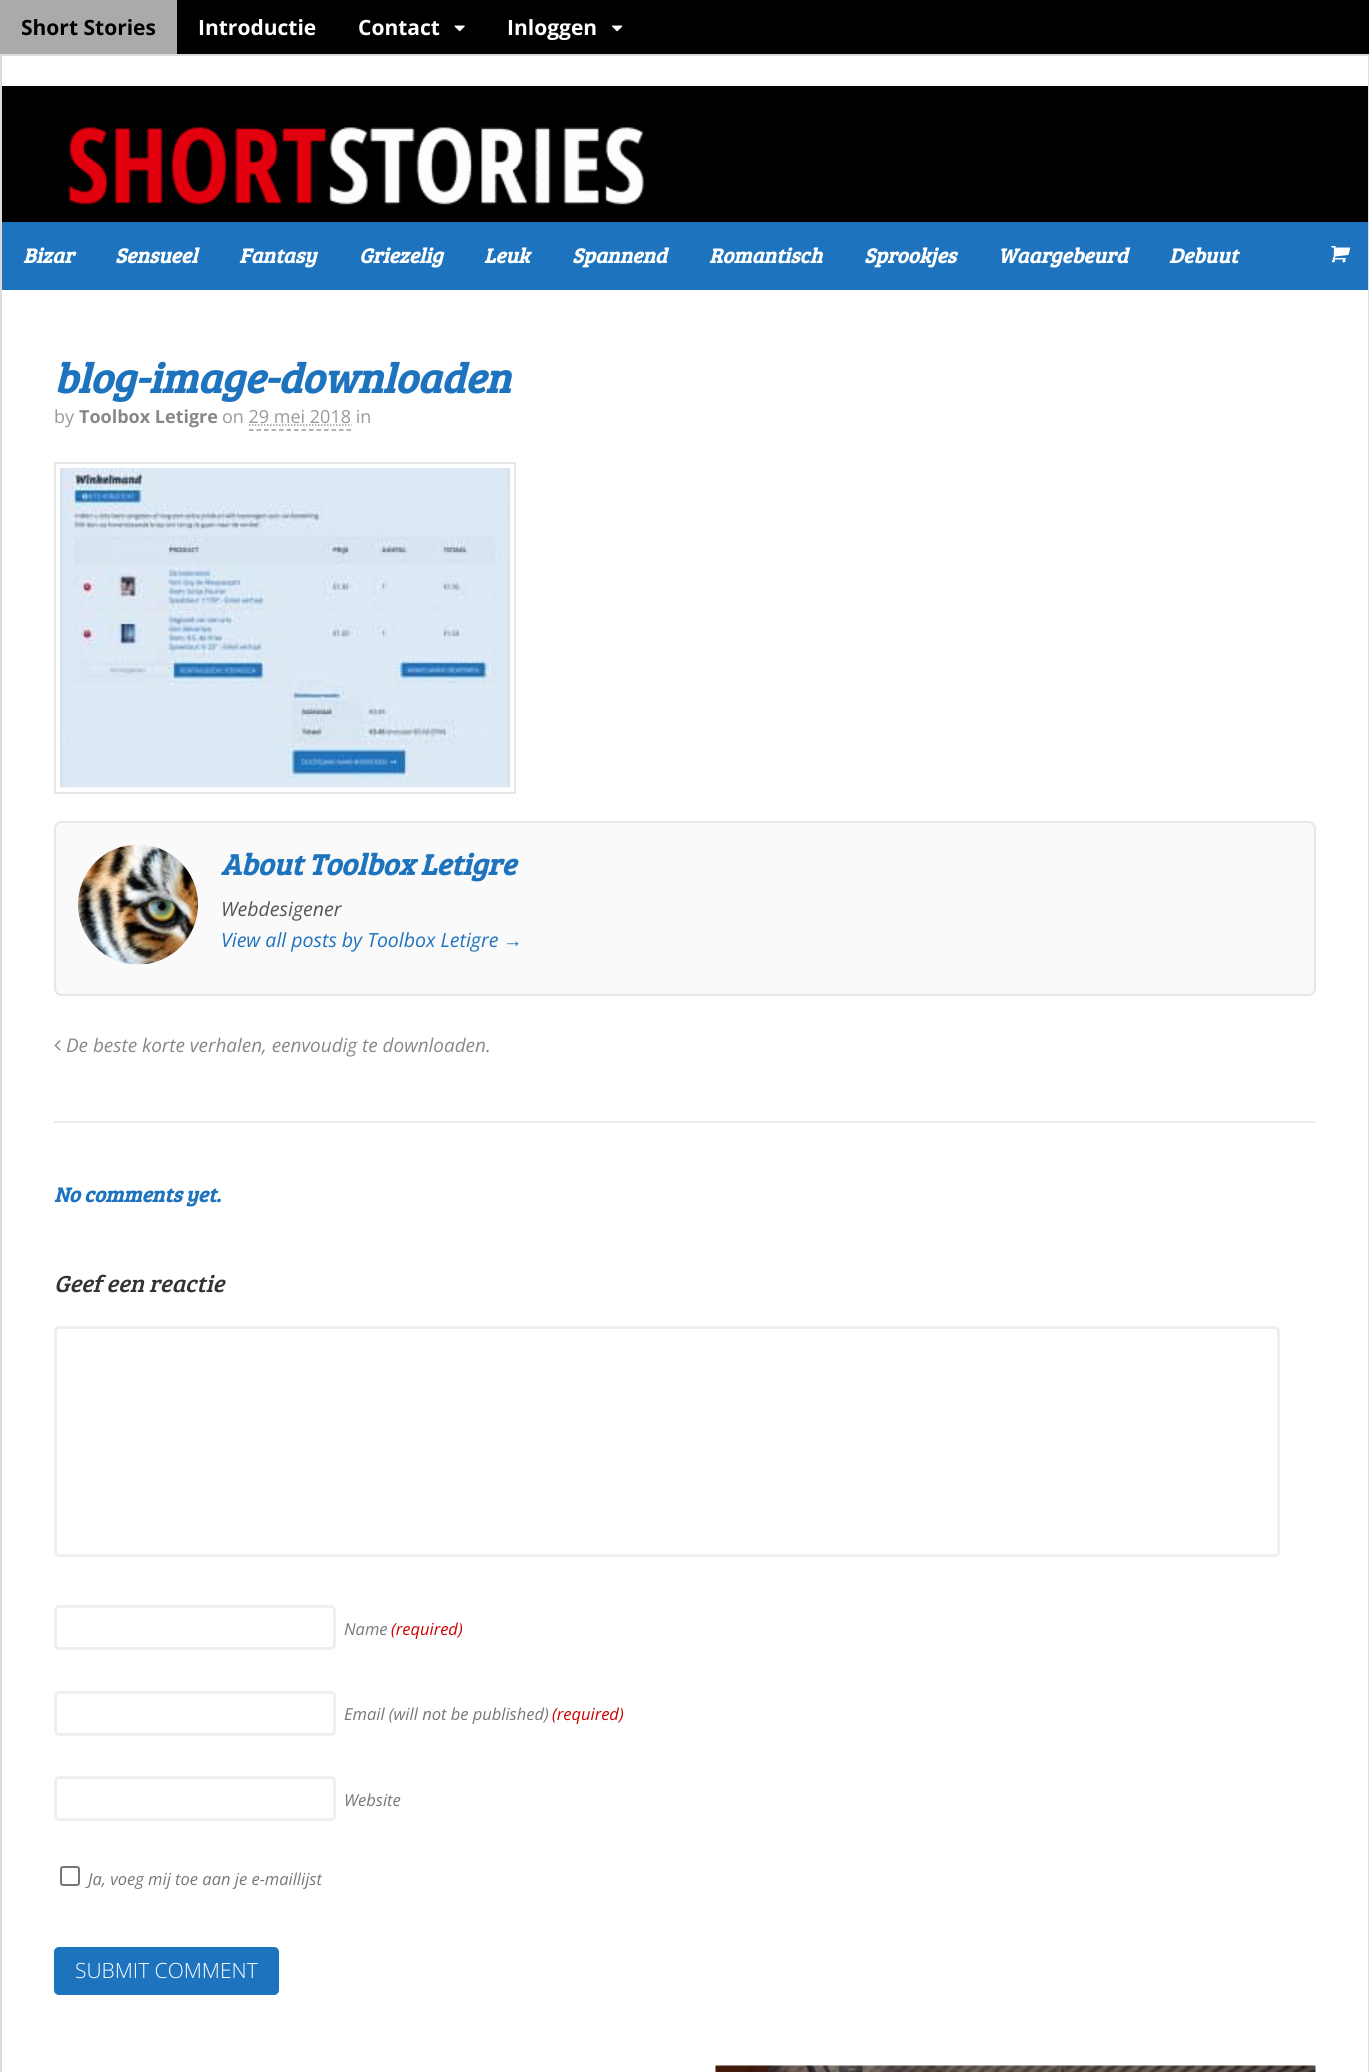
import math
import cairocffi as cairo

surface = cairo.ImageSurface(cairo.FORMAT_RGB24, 1369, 2072)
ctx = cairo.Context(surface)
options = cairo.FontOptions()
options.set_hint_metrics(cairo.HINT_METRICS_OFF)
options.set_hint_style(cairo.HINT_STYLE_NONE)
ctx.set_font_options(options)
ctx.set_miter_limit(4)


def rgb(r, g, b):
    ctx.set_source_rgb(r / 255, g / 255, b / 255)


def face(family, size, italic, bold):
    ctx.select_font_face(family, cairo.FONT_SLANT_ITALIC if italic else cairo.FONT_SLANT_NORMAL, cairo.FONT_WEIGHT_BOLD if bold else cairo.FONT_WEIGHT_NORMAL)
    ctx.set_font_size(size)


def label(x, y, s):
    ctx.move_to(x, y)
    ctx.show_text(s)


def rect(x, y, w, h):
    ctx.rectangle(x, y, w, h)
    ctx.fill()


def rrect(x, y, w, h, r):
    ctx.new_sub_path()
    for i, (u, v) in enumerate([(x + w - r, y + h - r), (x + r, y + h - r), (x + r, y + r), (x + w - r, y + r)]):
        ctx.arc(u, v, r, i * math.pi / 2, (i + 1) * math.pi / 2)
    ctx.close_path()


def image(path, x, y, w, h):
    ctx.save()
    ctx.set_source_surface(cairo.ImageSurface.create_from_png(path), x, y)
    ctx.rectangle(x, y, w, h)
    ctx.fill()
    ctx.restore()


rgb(255, 255, 255)
ctx.paint()
rgb(0, 0, 0)
rect(177, 0, 1192, 54)
rgb(170, 170, 170)
rect(0, 0, 177, 54)
face('Open Sans', 21, 0, 1)
rgb(0, 0, 0)
label(21, 35, 'Short Stories')
rgb(255, 255, 255)
label(198, 35, 'Introductie')
label(358, 35, 'Contact')
image('image0.png', 454, 25, 11, 7)
label(507, 35, 'Inloggen')
image('image1.png', 612, 25, 11, 7)
ctx.rectangle(1, 55, 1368, 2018)
rgb(219, 219, 219)
ctx.stroke()
rgb(0, 0, 0)
rect(2, 86, 1366, 136)
image('image2.png', 68, 127, 576, 78)
rgb(30, 115, 190)
rect(2, 222, 1366, 68)
face('Bree Serif', 21, 1, 1)
rgb(255, 255, 255)
label(23, 263, 'Bizar')
label(115, 263, 'Sensueel')
label(239, 263, 'Fantasy')
label(359, 263, 'Griezelig')
label(484, 263, 'Leuk')
label(572, 263, 'Spannend')
label(709, 263, 'Romantisch')
label(864, 263, 'Sprookjes')
label(998, 263, 'Waargebeurd')
label(1169, 263, 'Debuut')
image('image3.png', 1331, 246, 20, 17)
face('Bree Serif', 42, 1, 1)
rgb(30, 115, 190)
label(54, 393, 'blog-image-downloaden')
face('Open Sans', 18, 0, 0)
rgb(153, 153, 153)
label(54, 423, 'by')
face('Open Sans', 18, 0, 1)
rgb(136, 136, 136)
label(79, 423, 'Toolbox Letigre')
face('Open Sans', 18, 0, 0)
rgb(153, 153, 153)
label(222, 423, 'on 29 mei 2018 in')
ctx.new_path()
ctx.move_to(249, 425)
ctx.line_to(351.5, 425)
ctx.set_line_width(1.5)
ctx.set_dash([1.5, 1.5])
ctx.stroke()
ctx.new_path()
ctx.move_to(249, 430)
ctx.line_to(351, 430)
ctx.set_dash([4.5, 3])
ctx.stroke()
ctx.rectangle(55, 463, 460, 330)
rgb(230, 230, 230)
ctx.set_line_width(2)
ctx.set_dash([])
ctx.stroke()
image('image4.png', 60, 468, 450, 320)
rgb(250, 250, 250)
rrect(55, 822, 1260, 173, 7)
ctx.fill_preserve()
rgb(230, 230, 230)
ctx.stroke()
image('image5.png', 78, 844, 120, 121)
face('Bree Serif', 30, 1, 1)
rgb(30, 115, 190)
label(221, 875, 'About Toolbox Letigre')
face('Open Sans', 19.5, 1, 0)
rgb(85, 85, 85)
label(221, 916, 'Webdesigener')
rgb(30, 115, 190)
label(221, 947, 'View all posts by Toolbox Letigre')
face('Liberation Sans', 19.5, 1, 0)
label(503, 947, '→')
image('image6.png', 54, 1040, 7, 11)
face('Open Sans', 18.9, 1, 0)
rgb(136, 136, 136)
label(66, 1052, 'De beste korte verhalen, eenvoudig te downloaden.')
rgb(237, 237, 237)
rect(54, 1121, 1262, 2)
face('Bree Serif', 21, 1, 1)
rgb(30, 115, 190)
label(54, 1202, 'No comments yet.')
face('Bree Serif', 24, 1, 0)
rgb(51, 51, 51)
label(54, 1292, 'Geef een reactie')
rrect(55.5, 1327.5, 1223, 228, 3.5)
rgb(239, 239, 239)
ctx.set_line_width(3)
ctx.stroke()
rrect(55.5, 1606.5, 279, 42, 3.5)
ctx.stroke()
face('Open Sans', 16.5, 1, 0)
rgb(119, 119, 119)
label(344, 1635, 'Name')
rgb(204, 0, 0)
label(391, 1635, '(required)')
rrect(55.5, 1692.5, 279, 42, 3.5)
rgb(239, 239, 239)
ctx.stroke()
rgb(119, 119, 119)
label(344, 1720, 'Email (will not be published)')
rgb(204, 0, 0)
label(552, 1720, '(required)')
rrect(55.5, 1777.5, 279, 42, 3.5)
rgb(239, 239, 239)
ctx.stroke()
rgb(119, 119, 119)
label(344, 1806, 'Website')
rrect(61, 1867, 18, 18, 2)
rgb(118, 118, 118)
ctx.set_line_width(2)
ctx.stroke()
rgb(119, 119, 119)
label(88, 1885, 'Ja, voeg mij toe aan je e-maillijst')
rgb(30, 115, 190)
rrect(54, 1947, 225, 48, 5)
ctx.fill()
face('Open Sans Light', 21, 0, 0)
rgb(255, 255, 255)
label(75, 1978, 'SUBMIT COMMENT')
image('image7.png', 715, 2065, 601, 7)
surface.write_to_png('render.png')
